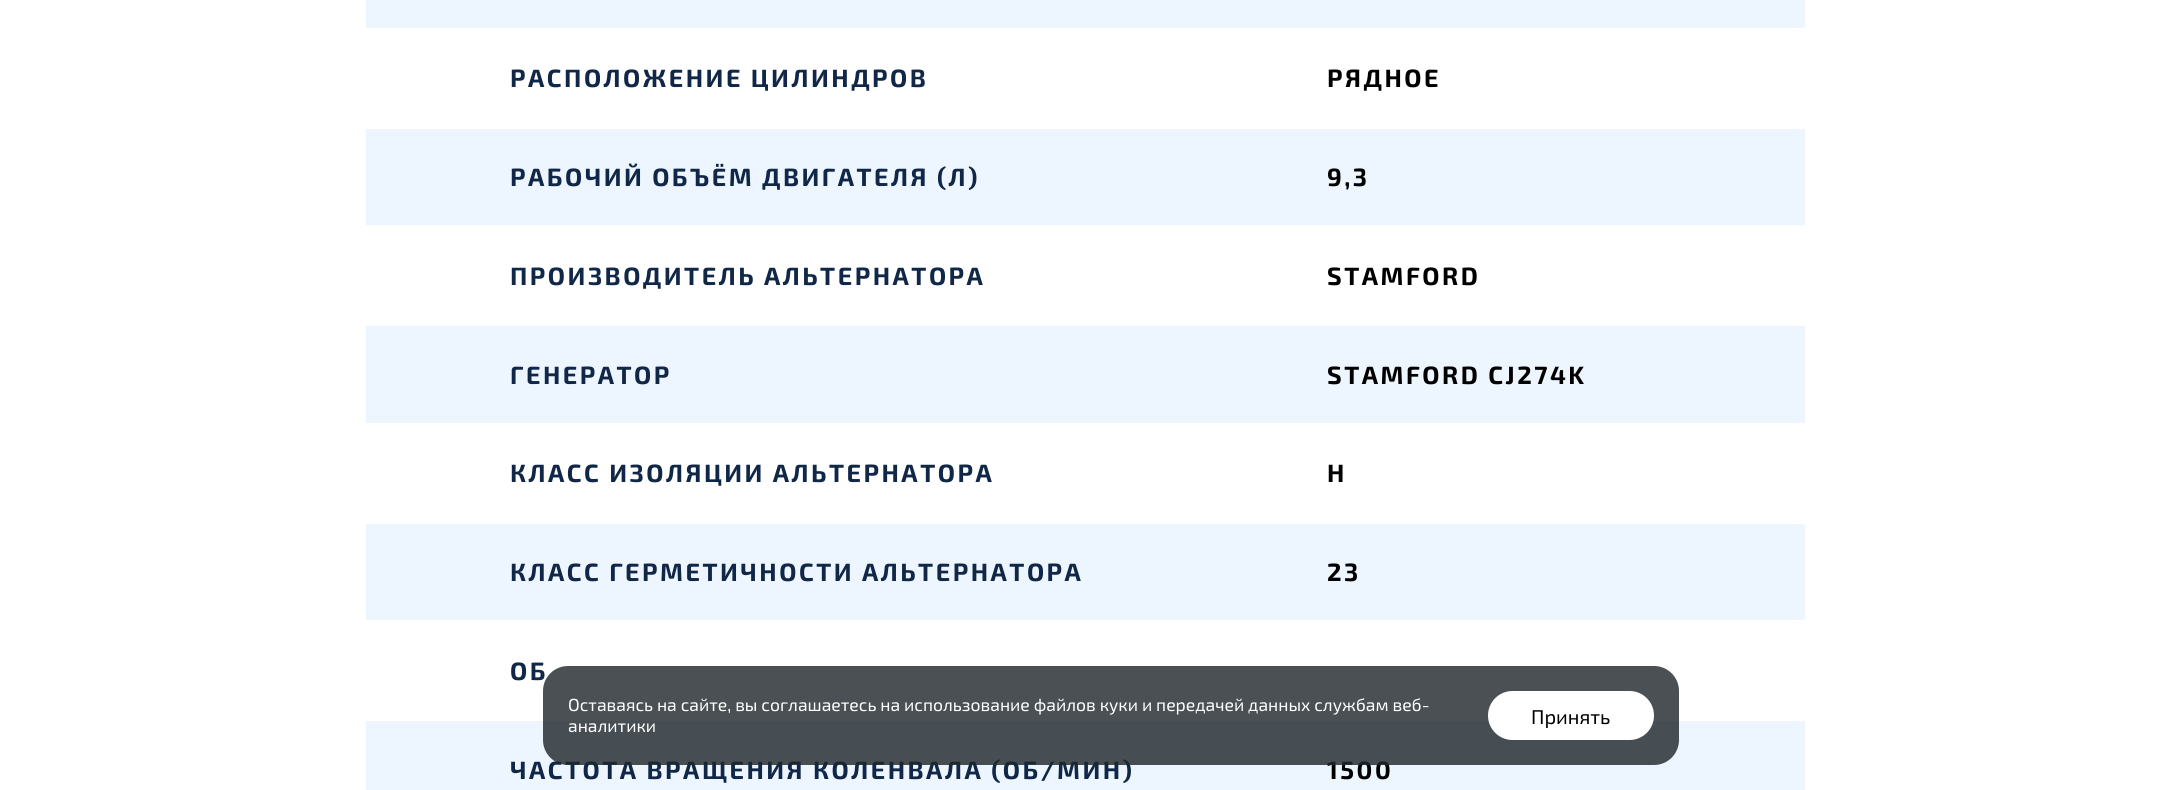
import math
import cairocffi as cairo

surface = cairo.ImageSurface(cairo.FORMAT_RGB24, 2171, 790)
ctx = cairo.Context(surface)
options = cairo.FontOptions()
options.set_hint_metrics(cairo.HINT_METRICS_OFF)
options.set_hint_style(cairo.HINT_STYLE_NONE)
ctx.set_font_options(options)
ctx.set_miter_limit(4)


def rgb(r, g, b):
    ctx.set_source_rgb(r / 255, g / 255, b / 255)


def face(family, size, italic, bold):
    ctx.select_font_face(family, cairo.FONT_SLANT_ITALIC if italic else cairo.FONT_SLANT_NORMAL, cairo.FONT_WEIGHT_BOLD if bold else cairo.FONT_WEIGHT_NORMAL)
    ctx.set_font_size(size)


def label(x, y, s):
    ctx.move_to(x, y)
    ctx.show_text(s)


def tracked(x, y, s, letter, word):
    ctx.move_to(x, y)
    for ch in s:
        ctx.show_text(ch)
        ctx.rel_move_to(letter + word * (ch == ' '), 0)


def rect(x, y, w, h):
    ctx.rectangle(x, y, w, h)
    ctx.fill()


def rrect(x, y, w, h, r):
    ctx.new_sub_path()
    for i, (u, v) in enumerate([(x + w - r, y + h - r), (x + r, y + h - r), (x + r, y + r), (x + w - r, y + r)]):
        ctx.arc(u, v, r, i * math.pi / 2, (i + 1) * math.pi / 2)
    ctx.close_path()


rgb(255, 255, 255)
ctx.paint()
rgb(237, 246, 255)
rect(366, 0, 1439, 28)
face('Exo 2', 25, 0, 1)
rgb(16, 39, 71)
tracked(510, 87, 'РАСПОЛОЖЕНИЕ ЦИЛИНДРОВ', 2.5, 0)
rgb(0, 0, 0)
tracked(1327, 87, 'РЯДНОЕ', 2.5, 0)
rgb(237, 246, 255)
rect(366, 129, 1439, 96)
rgb(16, 39, 71)
tracked(510, 186, 'РАБОЧИЙ ОБЪЁМ ДВИГАТЕЛЯ (Л)', 2.5, 0)
rgb(0, 0, 0)
tracked(1327, 186, '9,3', 2.5, 0)
rgb(16, 39, 71)
tracked(510, 285, 'ПРОИЗВОДИТЕЛЬ АЛЬТЕРНАТОРА', 2.5, 0)
rgb(0, 0, 0)
tracked(1327, 285, 'STAMFORD', 2.5, 0)
rgb(237, 246, 255)
rect(366, 326, 1439, 97)
rgb(16, 39, 71)
tracked(510, 384, 'ГЕНЕРАТОР', 2.5, 0)
rgb(0, 0, 0)
tracked(1327, 384, 'STAMFORD CJ274K', 2.5, 0)
rgb(16, 39, 71)
tracked(510, 482, 'КЛАСС ИЗОЛЯЦИИ АЛЬТЕРНАТОРА', 2.5, 0)
rgb(0, 0, 0)
tracked(1327, 482, 'H', 2.5, 0)
rgb(237, 246, 255)
rect(366, 524, 1439, 96)
rgb(16, 39, 71)
tracked(510, 581, 'КЛАСС ГЕРМЕТИЧНОСТИ АЛЬТЕРНАТОРА', 2.5, 0)
rgb(0, 0, 0)
tracked(1327, 581, '23', 2.5, 0)
rgb(16, 39, 71)
tracked(510, 680, 'ОБ', 2.5, 0)
rgb(237, 246, 255)
rect(366, 721, 1439, 69)
rgb(16, 39, 71)
tracked(510, 779, 'ЧАСТОТА ВРАЩЕНИЯ КОЛЕНВАЛА (ОБ/МИН)', 2.5, 0)
rgb(0, 0, 0)
tracked(1327, 779, '1500', 2.5, 0)
ctx.set_source_rgba(0.129, 0.157, 0.169, 0.81)
rrect(543, 666, 1136, 99, 25)
ctx.fill()
face('Exo 2', 17.5, 0, 0)
rgb(255, 255, 255)
label(568, 711, 'Оставаясь на сайте, вы соглашаетесь на использование файлов куки и передачей данных службам веб-')
label(568, 732, 'аналитики')
rrect(1488, 691, 166, 49, 24.5)
ctx.fill()
face('Exo 2', 20, 0, 0)
rgb(0, 0, 0)
label(1531, 724, 'Принять')
surface.write_to_png('render.png')
